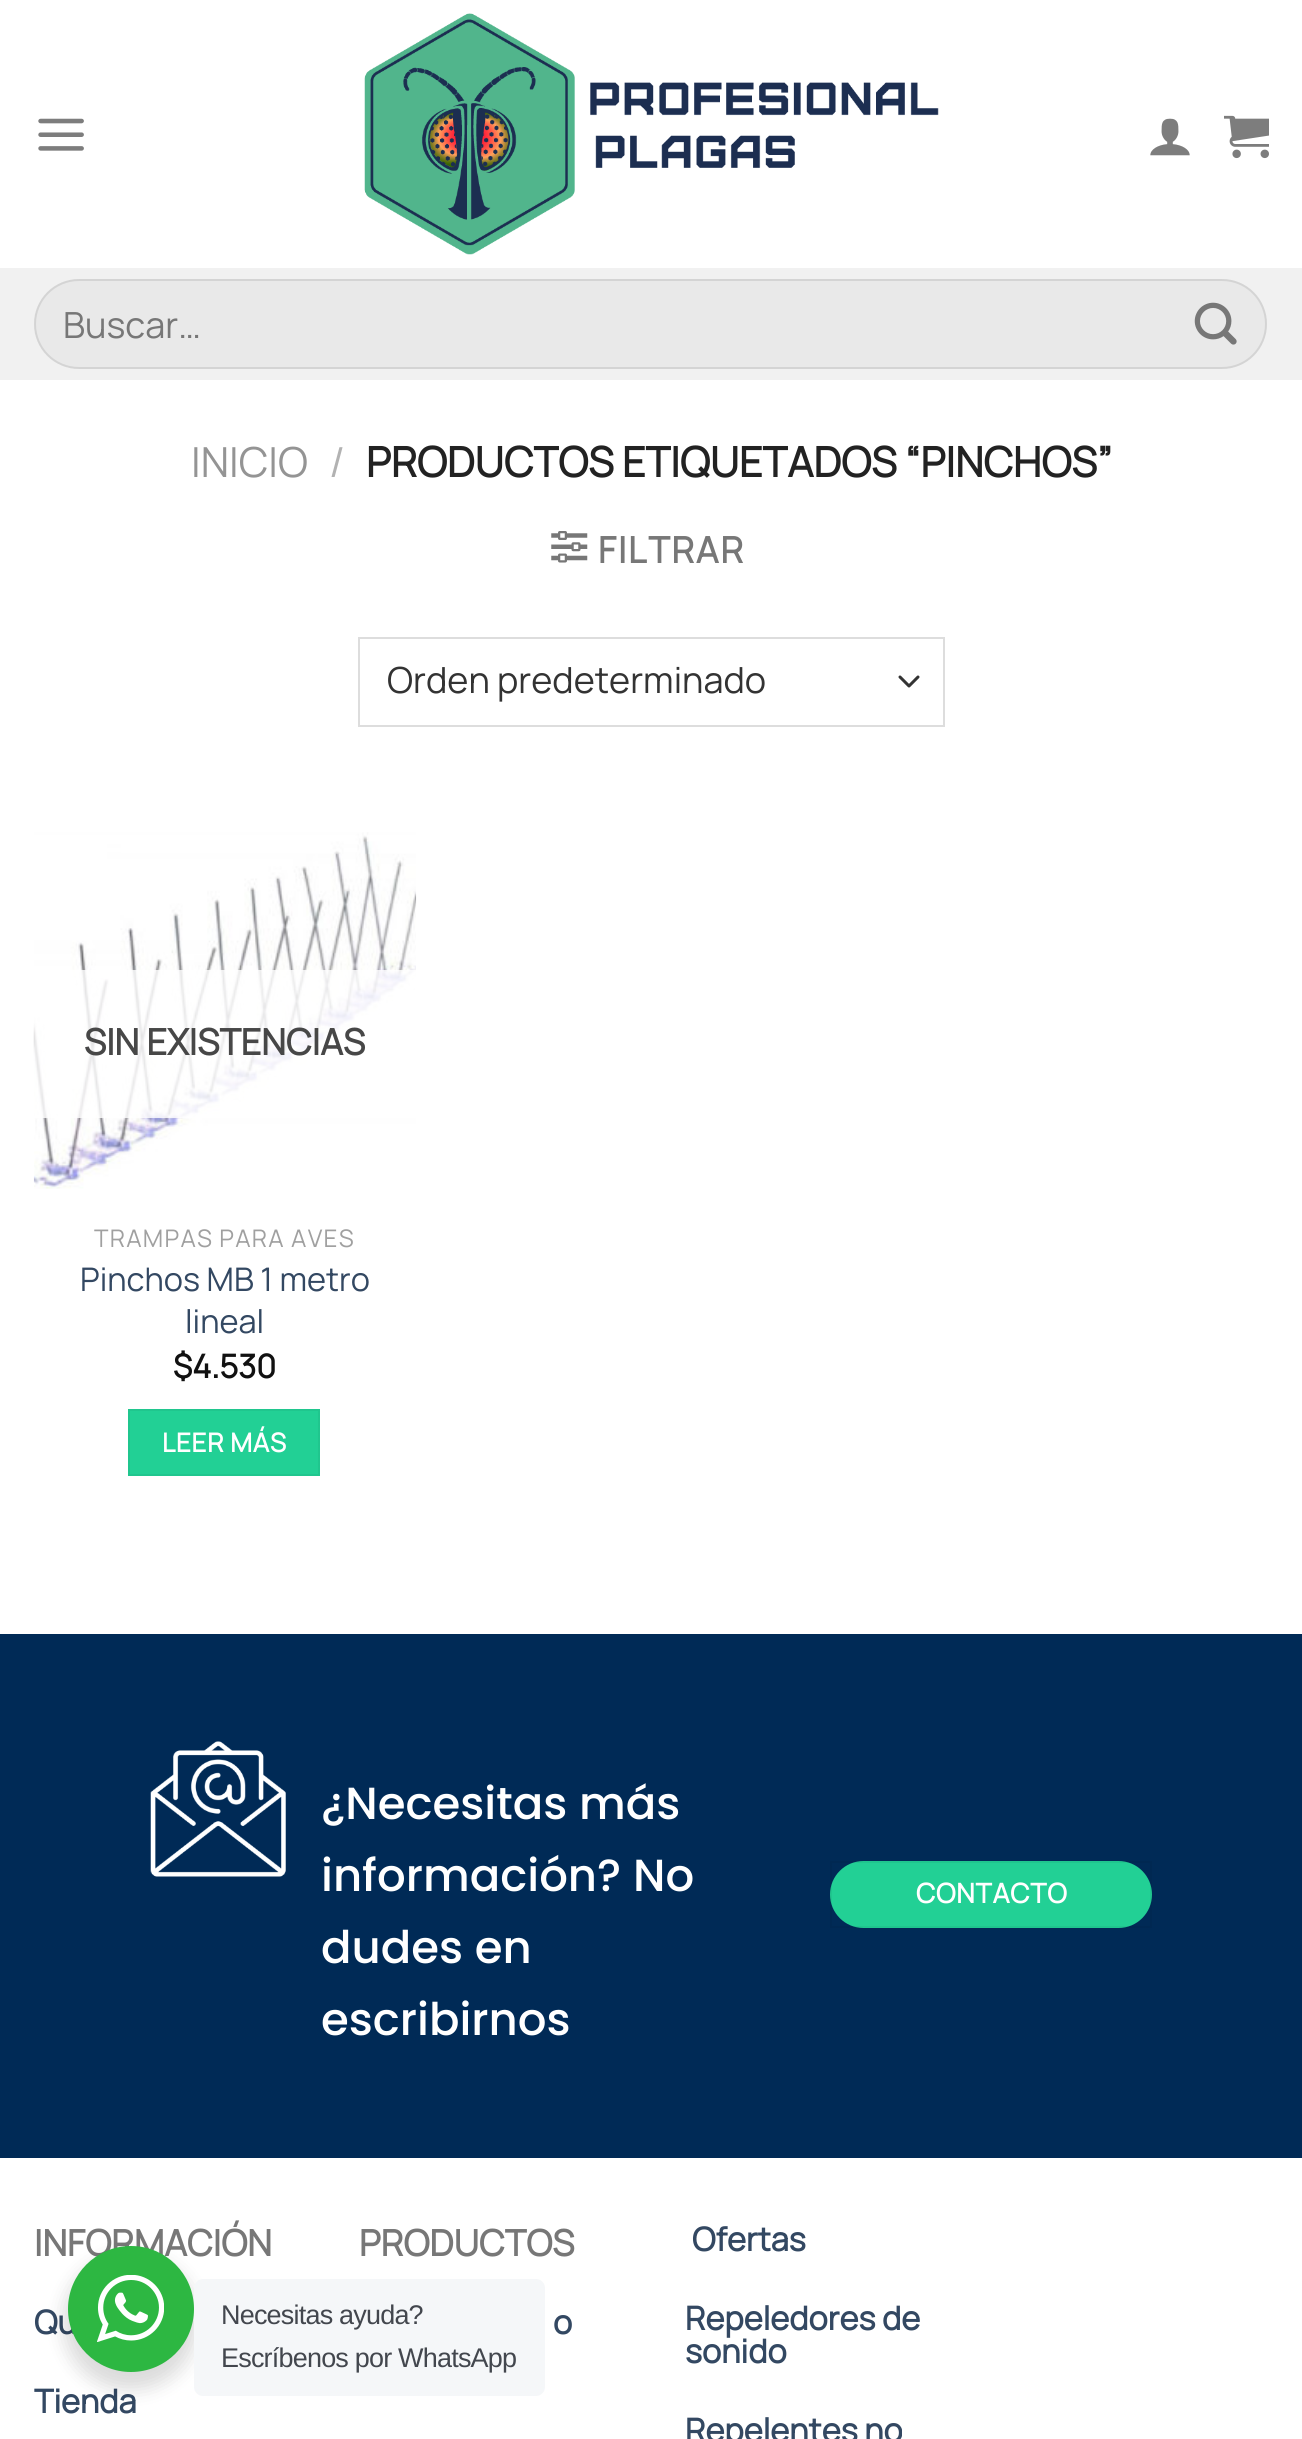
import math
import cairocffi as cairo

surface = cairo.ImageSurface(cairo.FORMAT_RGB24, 1302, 2439)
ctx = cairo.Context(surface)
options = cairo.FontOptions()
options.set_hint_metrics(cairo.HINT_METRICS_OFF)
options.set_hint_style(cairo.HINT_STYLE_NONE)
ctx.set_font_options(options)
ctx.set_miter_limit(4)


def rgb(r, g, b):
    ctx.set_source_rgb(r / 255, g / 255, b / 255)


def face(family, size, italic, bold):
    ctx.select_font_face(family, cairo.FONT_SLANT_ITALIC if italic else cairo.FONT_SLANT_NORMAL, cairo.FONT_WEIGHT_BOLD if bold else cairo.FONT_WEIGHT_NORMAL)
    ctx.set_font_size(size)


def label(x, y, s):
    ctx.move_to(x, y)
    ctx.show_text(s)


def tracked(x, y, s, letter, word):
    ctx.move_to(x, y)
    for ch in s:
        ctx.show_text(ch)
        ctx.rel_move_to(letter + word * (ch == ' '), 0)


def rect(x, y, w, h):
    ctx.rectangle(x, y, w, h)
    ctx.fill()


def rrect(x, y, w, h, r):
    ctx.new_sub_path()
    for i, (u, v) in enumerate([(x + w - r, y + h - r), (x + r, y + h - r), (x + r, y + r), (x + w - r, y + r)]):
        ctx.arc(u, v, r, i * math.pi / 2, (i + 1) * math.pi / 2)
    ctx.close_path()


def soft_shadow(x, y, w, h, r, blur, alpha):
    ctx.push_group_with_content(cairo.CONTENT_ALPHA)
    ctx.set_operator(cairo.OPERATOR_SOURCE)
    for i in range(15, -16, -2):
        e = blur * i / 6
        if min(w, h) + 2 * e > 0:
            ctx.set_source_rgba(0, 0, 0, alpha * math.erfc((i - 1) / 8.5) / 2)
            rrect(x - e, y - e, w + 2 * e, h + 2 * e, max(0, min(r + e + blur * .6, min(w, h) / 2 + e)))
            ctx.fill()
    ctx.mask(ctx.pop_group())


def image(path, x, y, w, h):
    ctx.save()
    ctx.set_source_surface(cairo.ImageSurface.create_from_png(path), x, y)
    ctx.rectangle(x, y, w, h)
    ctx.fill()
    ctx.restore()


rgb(255, 255, 255)
ctx.paint()
image('image0.png', 38, 118, 46, 33)
image('image1.png', 364, 13, 575, 242)
image('image2.png', 1150, 118, 40, 38)
image('image3.png', 1224, 115, 45, 44)
rgb(241, 241, 241)
rect(0, 268, 1302, 112)
rgb(233, 233, 233)
rrect(34, 279, 1233, 90, 45)
ctx.fill()
rrect(35, 280, 1231, 88, 44)
ctx.set_source_rgba(0, 0, 0, 0.09)
ctx.stroke()
face('Manrope ExtraLight', 36, 0, 0)
rgb(119, 119, 119)
label(63, 338, 'Buscar…')
image('image4.png', 1194, 302, 43, 43)
face('Manrope ExtraLight', 41.4, 0, 0)
rgb(148, 148, 148)
label(191, 477, 'INICIO')
rgb(178, 178, 178)
label(329, 477, '/')
face('Manrope', 41.4, 0, 1)
rgb(34, 34, 34)
label(366, 477, 'PRODUCTOS ETIQUETADOS “PINCHOS”')
image('image5.png', 551, 531, 37, 32)
face('Manrope', 36, 0, 1)
rgb(119, 119, 119)
tracked(598, 563, 'FILTRAR', 1.75, 0)
ctx.new_path()
ctx.move_to(900, 677)
ctx.line_to(909, 686)
ctx.line_to(918, 677)
rgb(51, 51, 51)
ctx.set_line_width(3)
ctx.set_line_cap(cairo.LINE_CAP_ROUND)
ctx.set_line_join(cairo.LINE_JOIN_ROUND)
ctx.stroke()
ctx.rectangle(359, 638, 585, 88)
rgb(221, 221, 221)
ctx.set_line_width(2)
ctx.set_line_cap(cairo.LINE_CAP_BUTT)
ctx.set_line_join(cairo.LINE_JOIN_MITER)
ctx.stroke()
face('Manrope ExtraLight', 36, 0, 0)
rgb(51, 51, 51)
label(387, 693, 'Orden predeterminado')
image('image6.png', 33, 832, 384, 357)
ctx.set_source_rgba(1, 1, 1, 0.81)
rect(34, 970, 382, 148)
face('Manrope', 36, 0, 1)
rgb(71, 71, 71)
label(84, 1055, 'SIN EXISTENCIAS')
face('Manrope ExtraLight', 24.25, 0, 0)
rgb(160, 160, 160)
tracked(94, 1247, 'TRAMPAS PARA AVES', 1.25, 0)
face('Manrope ExtraLight', 32.5, 0, 0)
rgb(51, 72, 98)
label(80, 1291, 'Pinchos MB 1 metro')
label(185, 1333, 'lineal')
face('Manrope', 32.5, 0, 1)
rgb(17, 17, 17)
label(173, 1378, '$4.530')
rgb(34, 208, 149)
ctx.rectangle(129, 1410, 190, 65)
ctx.fill_preserve()
rgb(32, 198, 142)
ctx.stroke()
face('Manrope', 26, 0, 1)
rgb(255, 255, 255)
tracked(162, 1452, 'LEER MÁS', 0.75, 0)
rgb(0, 42, 86)
rect(0, 1634, 1302, 524)
image('image7.png', 150, 1741, 136, 136)
face('Poppins Medium', 45, 0, 0)
rgb(255, 255, 255)
label(321, 1819, '¿Necesitas más')
label(321, 1891, 'información? No')
label(321, 1963, 'dudes en')
label(321, 2035, 'escribirnos')
rgb(34, 208, 149)
rrect(830, 1861, 322, 67, 33.5)
ctx.fill()
ctx.rectangle(831, 1862, 320, 65)
ctx.set_source_rgba(0, 0, 0, 0.05)
ctx.stroke()
face('Manrope', 27, 0, 1)
rgb(255, 255, 255)
tracked(916, 1903, 'CONTACTO', 0.75, 0)
face('Manrope', 36, 0, 1)
rgb(119, 119, 119)
label(34, 2256, 'INFORMACIÓN')
face('Manrope', 32.5, 0, 1)
rgb(51, 72, 98)
label(34, 2334, 'Qu')
label(34, 2413, 'Tienda')
face('Manrope', 36, 0, 1)
rgb(119, 119, 119)
label(359, 2256, 'PRODUCTOS')
face('Manrope', 32.5, 0, 1)
rgb(51, 72, 98)
label(553, 2334, 'o')
label(692, 2251, 'Ofertas')
label(685, 2330, 'Repeledores de')
label(685, 2363, 'sonido')
label(685, 2442, 'Repelentes no')
rgb(0, 0, 0)
soft_shadow(63, 2255, 135, 135, 67.5, 9, 0.14)
rgb(45, 183, 66)
ctx.arc(131, 2309, 63, 0, 2 * math.pi)
ctx.fill()
image('image8.png', 97, 2275, 67, 67)
rgb(245, 247, 249)
rrect(194, 2279, 351, 117, 9)
ctx.fill()
face('Liberation Sans', 27, 0, 0)
rgb(67, 71, 78)
tracked(221, 2324, 'Necesitas ayuda?', -0.8, 0)
tracked(221, 2367, 'Escríbenos por WhatsApp', -0.8, 0)
surface.write_to_png('render.png')
